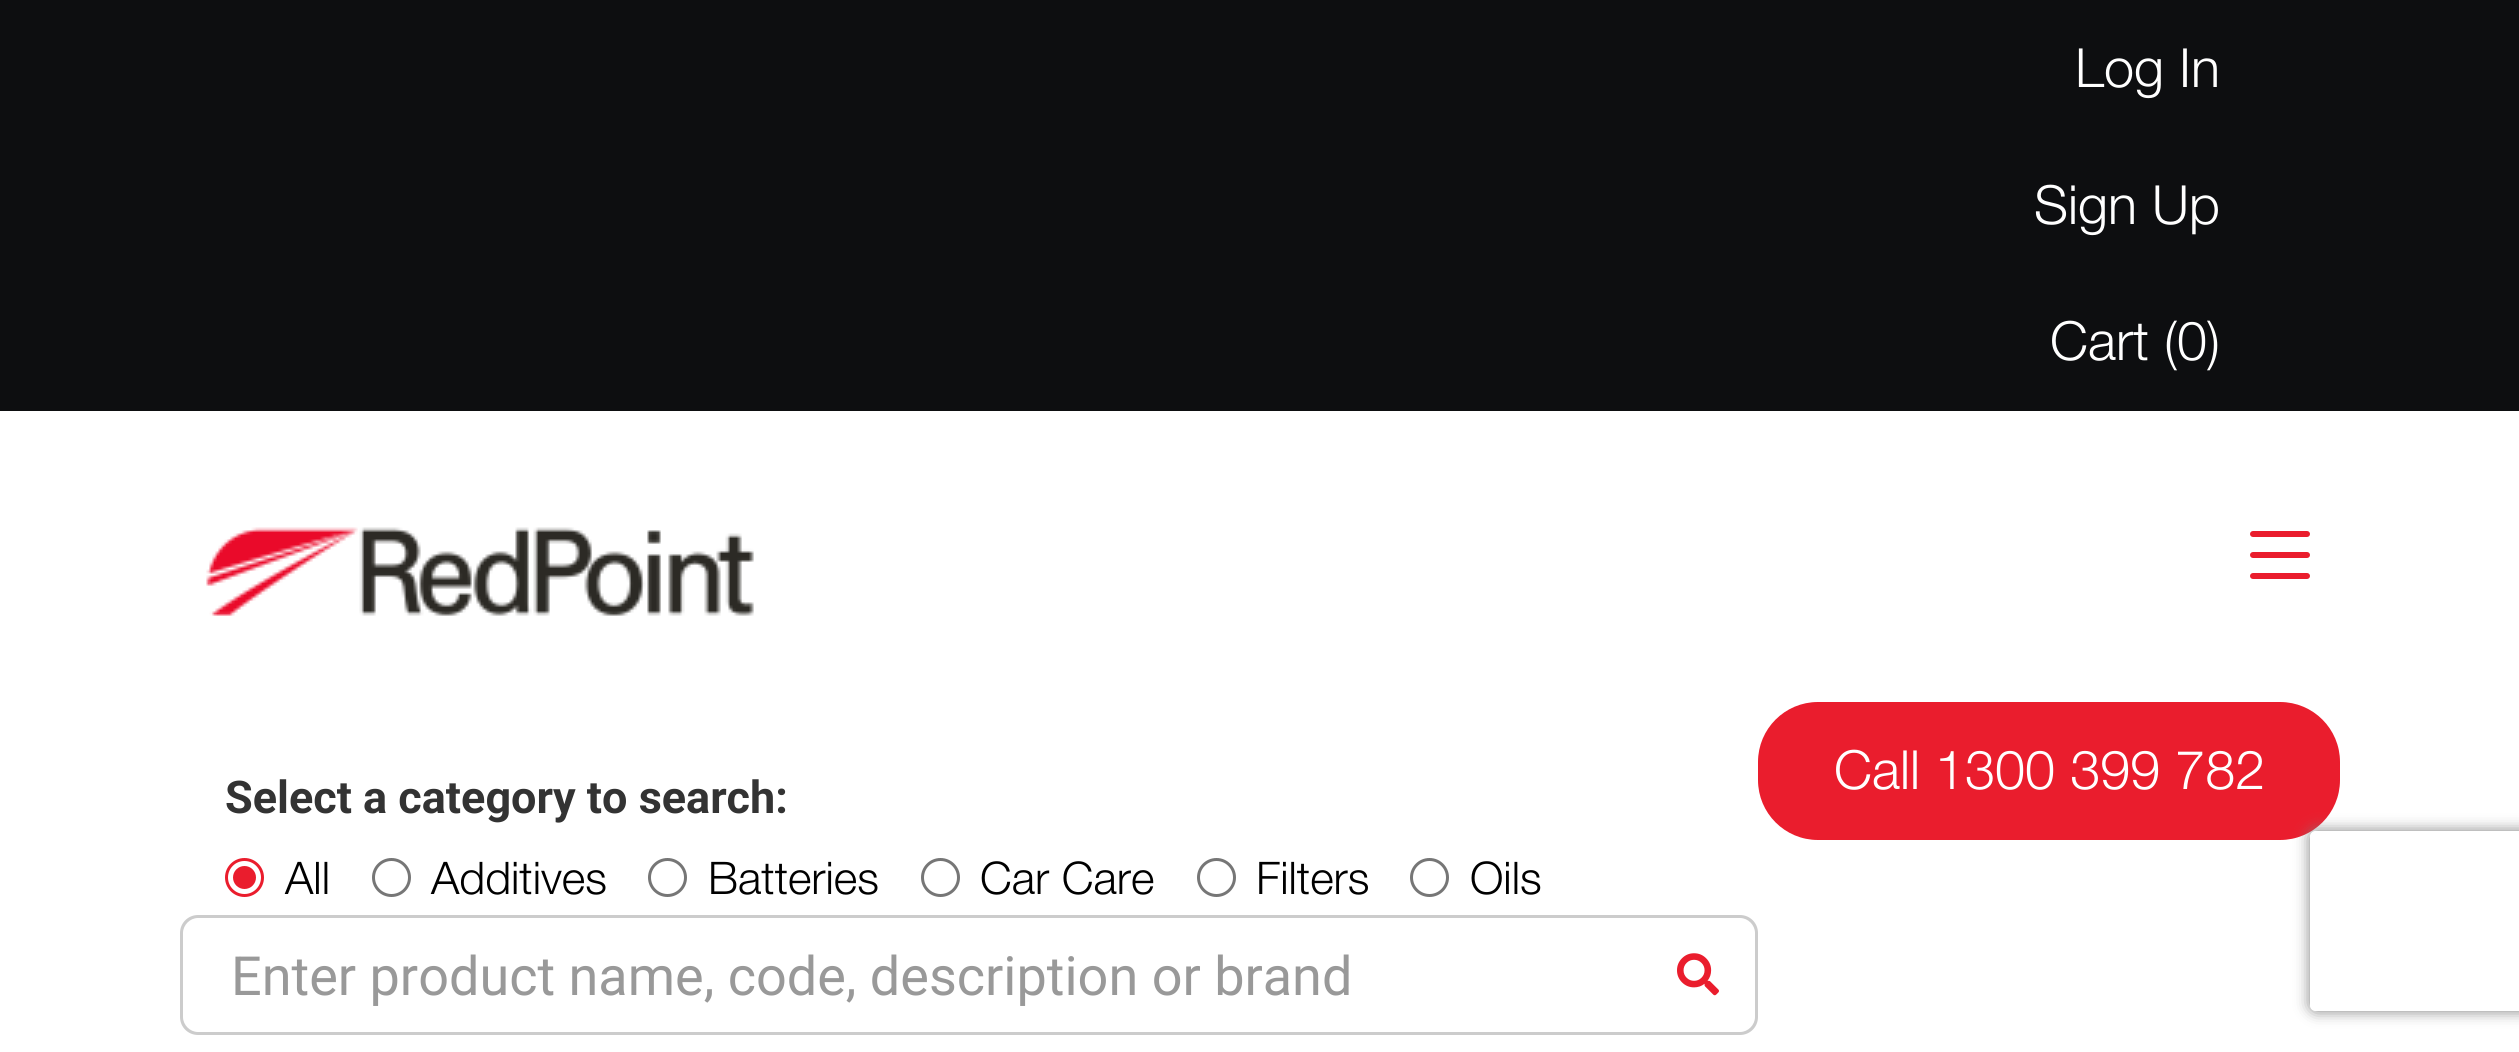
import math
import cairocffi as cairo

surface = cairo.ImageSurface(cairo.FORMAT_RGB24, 2519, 1052)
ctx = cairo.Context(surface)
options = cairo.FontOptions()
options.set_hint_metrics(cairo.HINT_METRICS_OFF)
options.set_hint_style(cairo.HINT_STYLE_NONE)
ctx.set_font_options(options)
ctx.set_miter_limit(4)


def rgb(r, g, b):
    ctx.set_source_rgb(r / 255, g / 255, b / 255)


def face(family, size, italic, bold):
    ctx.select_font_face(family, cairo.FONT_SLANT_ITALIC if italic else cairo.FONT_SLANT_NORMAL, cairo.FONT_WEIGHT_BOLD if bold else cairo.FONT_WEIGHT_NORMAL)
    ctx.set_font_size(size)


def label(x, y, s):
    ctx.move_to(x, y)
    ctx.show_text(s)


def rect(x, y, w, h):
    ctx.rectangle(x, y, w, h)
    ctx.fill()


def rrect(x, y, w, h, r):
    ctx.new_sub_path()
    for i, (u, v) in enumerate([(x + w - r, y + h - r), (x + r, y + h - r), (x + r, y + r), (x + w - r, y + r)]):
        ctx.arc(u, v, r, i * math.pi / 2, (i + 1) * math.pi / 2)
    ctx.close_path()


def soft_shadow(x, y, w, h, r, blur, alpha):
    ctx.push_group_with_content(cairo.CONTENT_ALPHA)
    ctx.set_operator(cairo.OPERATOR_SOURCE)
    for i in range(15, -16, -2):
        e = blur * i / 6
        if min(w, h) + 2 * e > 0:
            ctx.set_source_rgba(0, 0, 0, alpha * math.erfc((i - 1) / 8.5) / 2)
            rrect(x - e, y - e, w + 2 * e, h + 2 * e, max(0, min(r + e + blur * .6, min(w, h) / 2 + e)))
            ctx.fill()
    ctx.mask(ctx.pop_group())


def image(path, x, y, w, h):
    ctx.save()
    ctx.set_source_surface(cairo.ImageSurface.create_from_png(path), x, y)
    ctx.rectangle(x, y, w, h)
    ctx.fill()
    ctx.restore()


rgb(255, 255, 255)
ctx.paint()
rgb(13, 14, 16)
rect(0, 0, 2519, 411)
face('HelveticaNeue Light', 54, 0, 0)
rgb(255, 255, 255)
label(2075, 87, 'Log In')
label(2034, 224, 'Sign Up')
label(2050, 360, 'Cart (0)')
image('image0.png', 206, 527, 548, 89)
rgb(234, 29, 45)
rrect(2250, 531, 60, 6, 3)
ctx.fill()
rrect(2250, 552, 60, 6, 3)
ctx.fill()
rrect(2250, 573, 60, 6, 3)
ctx.fill()
rrect(1758, 702, 582, 138, 60)
ctx.fill()
rgb(255, 255, 255)
label(1834, 789, 'Call 1300 399 782')
face('Roboto', 45, 0, 1)
rgb(51, 51, 51)
label(225, 813, 'Select a category to search:')
ctx.new_path()
ctx.arc(244.5, 877.5, 18, 0, 2 * math.pi)
rgb(234, 29, 45)
ctx.set_line_width(3)
ctx.stroke()
ctx.arc(244.5, 877.5, 11.5, 0, 2 * math.pi)
ctx.fill()
face('HelveticaNeue Light', 45, 0, 0)
rgb(0, 0, 0)
label(285, 894, 'All')
ctx.new_path()
ctx.arc(391.5, 877.5, 18, 0, 2 * math.pi)
rgb(118, 118, 118)
ctx.stroke()
rgb(0, 0, 0)
label(431, 894, 'Additives')
ctx.new_path()
ctx.arc(667.5, 877.5, 18, 0, 2 * math.pi)
rgb(118, 118, 118)
ctx.stroke()
rgb(0, 0, 0)
label(708, 894, 'Batteries')
ctx.new_path()
ctx.arc(940.5, 877.5, 18, 0, 2 * math.pi)
rgb(118, 118, 118)
ctx.stroke()
rgb(0, 0, 0)
label(980, 894, 'Car Care')
ctx.new_path()
ctx.arc(1216.5, 877.5, 18, 0, 2 * math.pi)
rgb(118, 118, 118)
ctx.stroke()
rgb(0, 0, 0)
label(1256, 894, 'Filters')
ctx.new_path()
ctx.arc(1429.5, 877.5, 18, 0, 2 * math.pi)
rgb(118, 118, 118)
ctx.stroke()
rgb(0, 0, 0)
label(1470, 894, 'Oils')
rgb(204, 204, 204)
ctx.set_fill_rule(cairo.FILL_RULE_EVEN_ODD)
ctx.new_path()
ctx.move_to(198, 915)
ctx.line_to(1641, 915)
ctx.line_to(1641, 1035)
ctx.line_to(198, 1035)
ctx.curve_to(188, 1035, 180, 1027, 180, 1017)
ctx.line_to(180, 933)
ctx.curve_to(180, 923, 188, 915, 198, 915)
ctx.close_path()
ctx.move_to(198, 918)
ctx.line_to(1641, 918)
ctx.line_to(1641, 1032)
ctx.line_to(198, 1032)
ctx.curve_to(190, 1032, 183, 1025, 183, 1017)
ctx.line_to(183, 933)
ctx.curve_to(183, 925, 190, 918, 198, 918)
ctx.close_path()
ctx.fill()
face('Roboto', 54, 0, 0)
rgb(153, 153, 153)
label(231, 995, 'Enter product name, code, description or brand')
rgb(204, 204, 204)
ctx.new_path()
ctx.move_to(1641, 915)
ctx.line_to(1740, 915)
ctx.curve_to(1750, 915, 1758, 923, 1758, 933)
ctx.line_to(1758, 1017)
ctx.curve_to(1758, 1027, 1750, 1035, 1740, 1035)
ctx.line_to(1641, 1035)
ctx.close_path()
ctx.move_to(1641, 918)
ctx.line_to(1740, 918)
ctx.curve_to(1748, 918, 1755, 925, 1755, 933)
ctx.line_to(1755, 1017)
ctx.curve_to(1755, 1025, 1748, 1032, 1740, 1032)
ctx.line_to(1641, 1032)
ctx.close_path()
ctx.fill()
image('image1.png', 1677, 953, 42, 43)
ctx.save()
ctx.new_path()
ctx.move_to(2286, 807)
ctx.line_to(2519, 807)
ctx.line_to(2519, 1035)
ctx.line_to(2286, 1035)
ctx.close_path()
ctx.move_to(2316, 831)
ctx.line_to(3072, 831)
ctx.curve_to(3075.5, 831, 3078, 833.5, 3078, 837)
ctx.line_to(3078, 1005)
ctx.curve_to(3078, 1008.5, 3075.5, 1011, 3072, 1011)
ctx.line_to(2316, 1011)
ctx.curve_to(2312.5, 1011, 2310, 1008.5, 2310, 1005)
ctx.line_to(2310, 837)
ctx.curve_to(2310, 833.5, 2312.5, 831, 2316, 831)
ctx.close_path()
ctx.clip()
rgb(128, 128, 128)
soft_shadow(2310, 831, 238, 180, 6, 7.5, 1)
ctx.restore()
surface.write_to_png('render.png')
